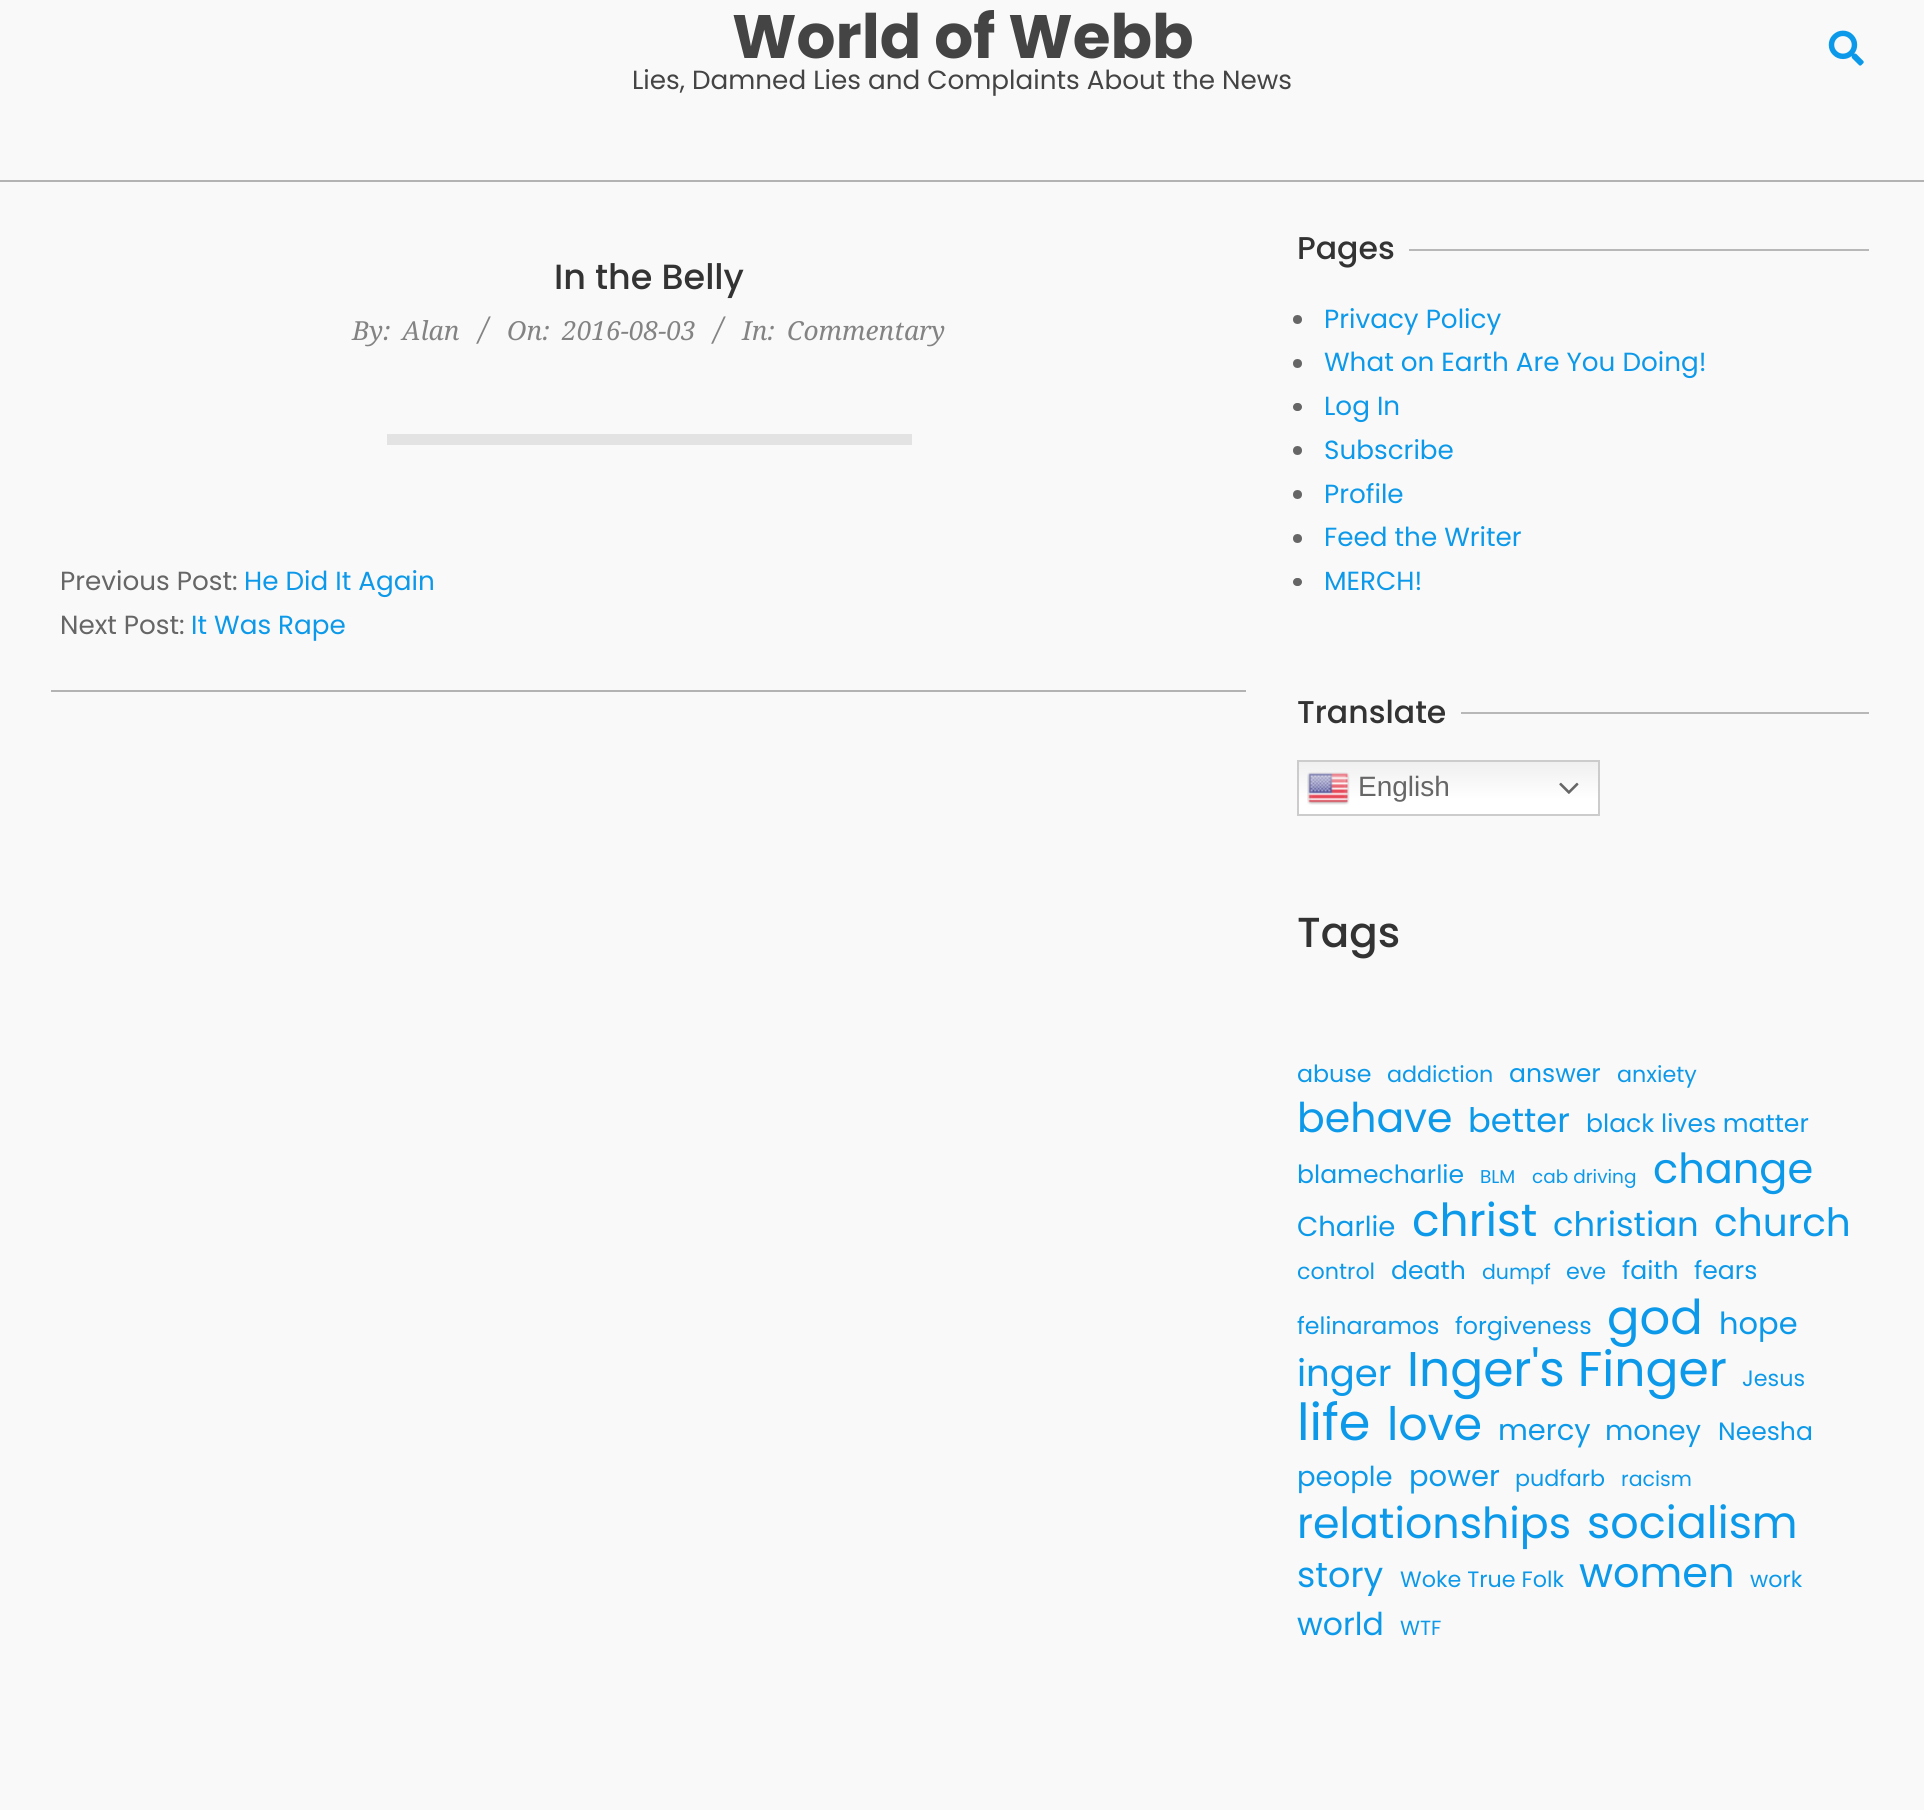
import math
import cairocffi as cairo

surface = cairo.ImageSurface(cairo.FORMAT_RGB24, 1924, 1810)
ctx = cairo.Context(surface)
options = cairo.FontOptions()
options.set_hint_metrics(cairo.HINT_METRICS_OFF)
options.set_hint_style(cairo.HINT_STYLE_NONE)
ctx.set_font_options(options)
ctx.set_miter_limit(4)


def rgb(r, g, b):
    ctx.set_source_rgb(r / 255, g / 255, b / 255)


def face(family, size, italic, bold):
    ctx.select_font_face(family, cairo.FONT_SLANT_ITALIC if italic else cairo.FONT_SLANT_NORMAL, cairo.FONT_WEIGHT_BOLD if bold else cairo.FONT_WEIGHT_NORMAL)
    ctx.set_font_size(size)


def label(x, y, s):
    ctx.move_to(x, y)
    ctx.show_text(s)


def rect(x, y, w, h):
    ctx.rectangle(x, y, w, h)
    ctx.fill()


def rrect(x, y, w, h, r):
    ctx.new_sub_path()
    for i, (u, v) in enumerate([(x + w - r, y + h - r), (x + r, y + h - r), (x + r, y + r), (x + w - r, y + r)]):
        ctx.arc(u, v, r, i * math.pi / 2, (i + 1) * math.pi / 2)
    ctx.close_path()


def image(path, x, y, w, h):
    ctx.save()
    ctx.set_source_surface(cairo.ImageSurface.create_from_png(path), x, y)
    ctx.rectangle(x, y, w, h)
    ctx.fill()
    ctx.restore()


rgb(249, 249, 249)
ctx.paint()
rgb(179, 179, 179)
rect(0, 180, 1924, 2)
face('Poppins', 61.25, 0, 1)
rgb(68, 68, 68)
label(732, 58, 'World of Webb')
face('Poppins', 26.25, 0, 0)
label(632, 89, 'Lies, Damned Lies and Complaints About the News')
image('image0.png', 1828, 30, 36, 36)
face('Poppins Medium', 35, 0, 0)
rgb(51, 51, 51)
label(554, 289, 'In the Belly')
face('Noto Serif', 26.25, 1, 0)
rgb(131, 131, 131)
label(352, 340, 'By:')
label(402, 340, 'Alan')
face('Noto Serif', 31, 1, 0)
label(479, 340, '/')
face('Noto Serif', 26.25, 1, 0)
label(507, 340, 'On:')
label(562, 340, '2016-08-03')
face('Noto Serif', 31, 1, 0)
label(714, 340, '/')
face('Noto Serif', 26.25, 1, 0)
label(742, 340, 'In:')
label(787, 340, 'Commentary')
rgb(227, 227, 227)
rect(387, 434, 525, 11)
rgb(179, 179, 179)
rect(51, 690, 1195, 2)
face('Poppins', 26.25, 0, 0)
rgb(102, 102, 102)
label(60, 590, 'Previous Post:')
rgb(13, 153, 233)
label(244, 590, 'He Did It Again')
rgb(102, 102, 102)
label(60, 634, 'Next Post:')
rgb(13, 153, 233)
label(191, 634, 'It Was Rape')
face('Poppins Medium', 31.5, 0, 0)
rgb(51, 51, 51)
label(1297, 259, 'Pages')
rgb(184, 184, 184)
rect(1409, 249, 460, 2)
rgb(102, 102, 102)
ctx.new_path()
ctx.arc(1297.5, 319.5, 4.5, 0, 2 * math.pi)
ctx.fill()
face('Poppins', 26.25, 0, 0)
rgb(13, 153, 233)
label(1324, 328, 'Privacy Policy')
rgb(102, 102, 102)
ctx.new_path()
ctx.arc(1297.5, 363.5, 4.5, 0, 2 * math.pi)
ctx.fill()
rgb(13, 153, 233)
label(1324, 371, 'What on Earth Are You Doing!')
rgb(102, 102, 102)
rrect(1293, 403, 9, 8, 4)
ctx.fill()
rgb(13, 153, 233)
label(1324, 415, 'Log In')
rgb(102, 102, 102)
ctx.new_path()
ctx.arc(1297.5, 450.5, 4.5, 0, 2 * math.pi)
ctx.fill()
rgb(13, 153, 233)
label(1324, 459, 'Subscribe')
rgb(102, 102, 102)
ctx.new_path()
ctx.arc(1297.5, 494.5, 4.5, 0, 2 * math.pi)
ctx.fill()
rgb(13, 153, 233)
label(1324, 503, 'Profile')
rgb(102, 102, 102)
ctx.new_path()
ctx.arc(1297.5, 538.5, 4.5, 0, 2 * math.pi)
ctx.fill()
rgb(13, 153, 233)
label(1324, 546, 'Feed the Writer')
rgb(102, 102, 102)
rrect(1293, 578, 9, 8, 4)
ctx.fill()
rgb(13, 153, 233)
label(1324, 590, 'MERCH!')
face('Poppins Medium', 31.5, 0, 0)
rgb(51, 51, 51)
label(1297, 723, 'Translate')
rgb(184, 184, 184)
rect(1461, 712, 408, 2)
gradient = cairo.LinearGradient(1448, 760, 1448, 816)
gradient.add_color_stop_rgba(0, 0.937, 0.937, 0.937, 1)
gradient.add_color_stop_rgba(0.7, 1, 1, 1, 1)
ctx.set_source(gradient)
rect(1299, 762, 299, 52)
ctx.rectangle(1298, 761, 301, 54)
rgb(204, 204, 204)
ctx.stroke()
image('image1.png', 1307, 772, 43, 33)
face('Liberation Sans', 28, 0, 0)
rgb(102, 102, 102)
label(1358, 796, 'English')
image('image2.png', 1559, 782, 20, 12)
face('Poppins Medium', 42, 0, 0)
rgb(51, 51, 51)
label(1297, 947, 'Tags')
face('Poppins', 23.75, 0, 0)
rgb(13, 153, 233)
label(1297, 1082, 'abuse')
face('Poppins', 22.25, 0, 0)
label(1387, 1082, 'addiction')
face('Poppins', 25.1, 0, 0)
label(1509, 1082, 'answer')
face('Poppins', 22.25, 0, 0)
label(1617, 1082, 'anxiety')
face('Poppins', 41, 0, 0)
label(1297, 1132, 'behave')
face('Poppins', 33.75, 0, 0)
label(1468, 1132, 'better')
face('Poppins', 25.1, 0, 0)
label(1586, 1132, 'black lives matter')
label(1297, 1183, 'blamecharlie')
face('Poppins', 18.5, 0, 0)
label(1480, 1183, 'BLM')
label(1532, 1183, 'cab driving')
face('Poppins', 41.5, 0, 0)
label(1653, 1183, 'change')
face('Poppins', 27.5, 0, 0)
label(1297, 1236, 'Charlie')
face('Poppins', 45.5, 0, 0)
label(1412, 1236, 'christ')
face('Poppins', 33.75, 0, 0)
label(1553, 1236, 'christian')
face('Poppins', 39, 0, 0)
label(1714, 1236, 'church')
face('Poppins', 22.25, 0, 0)
label(1297, 1279, 'control')
face('Poppins', 25.1, 0, 0)
label(1391, 1279, 'death')
face('Poppins', 20.5, 0, 0)
label(1482, 1279, 'dumpf')
face('Poppins', 22.25, 0, 0)
label(1566, 1279, 'eve')
face('Poppins', 25.1, 0, 0)
label(1622, 1279, 'faith')
label(1694, 1279, 'fears')
face('Poppins', 23.75, 0, 0)
label(1297, 1334, 'felinaramos')
label(1455, 1334, 'forgiveness')
face('Poppins', 48, 0, 0)
label(1607, 1334, 'god')
face('Poppins', 30.5, 0, 0)
label(1719, 1334, 'hope')
face('Poppins', 37, 0, 0)
label(1297, 1386, 'inger')
face('Poppins', 48.75, 0, 0)
label(1407, 1386, 'Inger\'s Finger')
face('Poppins', 22.25, 0, 0)
label(1742, 1386, 'Jesus')
face('Poppins', 51, 0, 0)
label(1297, 1440, 'life')
face('Poppins', 46, 0, 0)
label(1387, 1440, 'love')
face('Poppins', 29, 0, 0)
label(1498, 1440, 'mercy')
face('Poppins', 27.5, 0, 0)
label(1605, 1440, 'money')
face('Poppins', 25.1, 0, 0)
label(1718, 1440, 'Neesha')
face('Poppins', 27.5, 0, 0)
label(1297, 1486, 'people')
face('Poppins', 29, 0, 0)
label(1409, 1486, 'power')
face('Poppins', 22.25, 0, 0)
label(1515, 1486, 'pudfarb')
face('Poppins', 20.5, 0, 0)
label(1621, 1486, 'racism')
face('Poppins', 42.75, 0, 0)
label(1297, 1538, 'relationships')
face('Poppins', 44.5, 0, 0)
label(1587, 1538, 'socialism')
face('Poppins', 35, 0, 0)
label(1297, 1587, 'story')
face('Poppins', 22.25, 0, 0)
label(1400, 1587, 'Woke True Folk')
face('Poppins', 41.5, 0, 0)
label(1579, 1587, 'women')
face('Poppins', 22.25, 0, 0)
label(1750, 1587, 'work')
face('Poppins', 31.5, 0, 0)
label(1297, 1635, 'world')
face('Poppins', 20.5, 0, 0)
label(1400, 1635, 'WTF')
surface.write_to_png('render.png')
